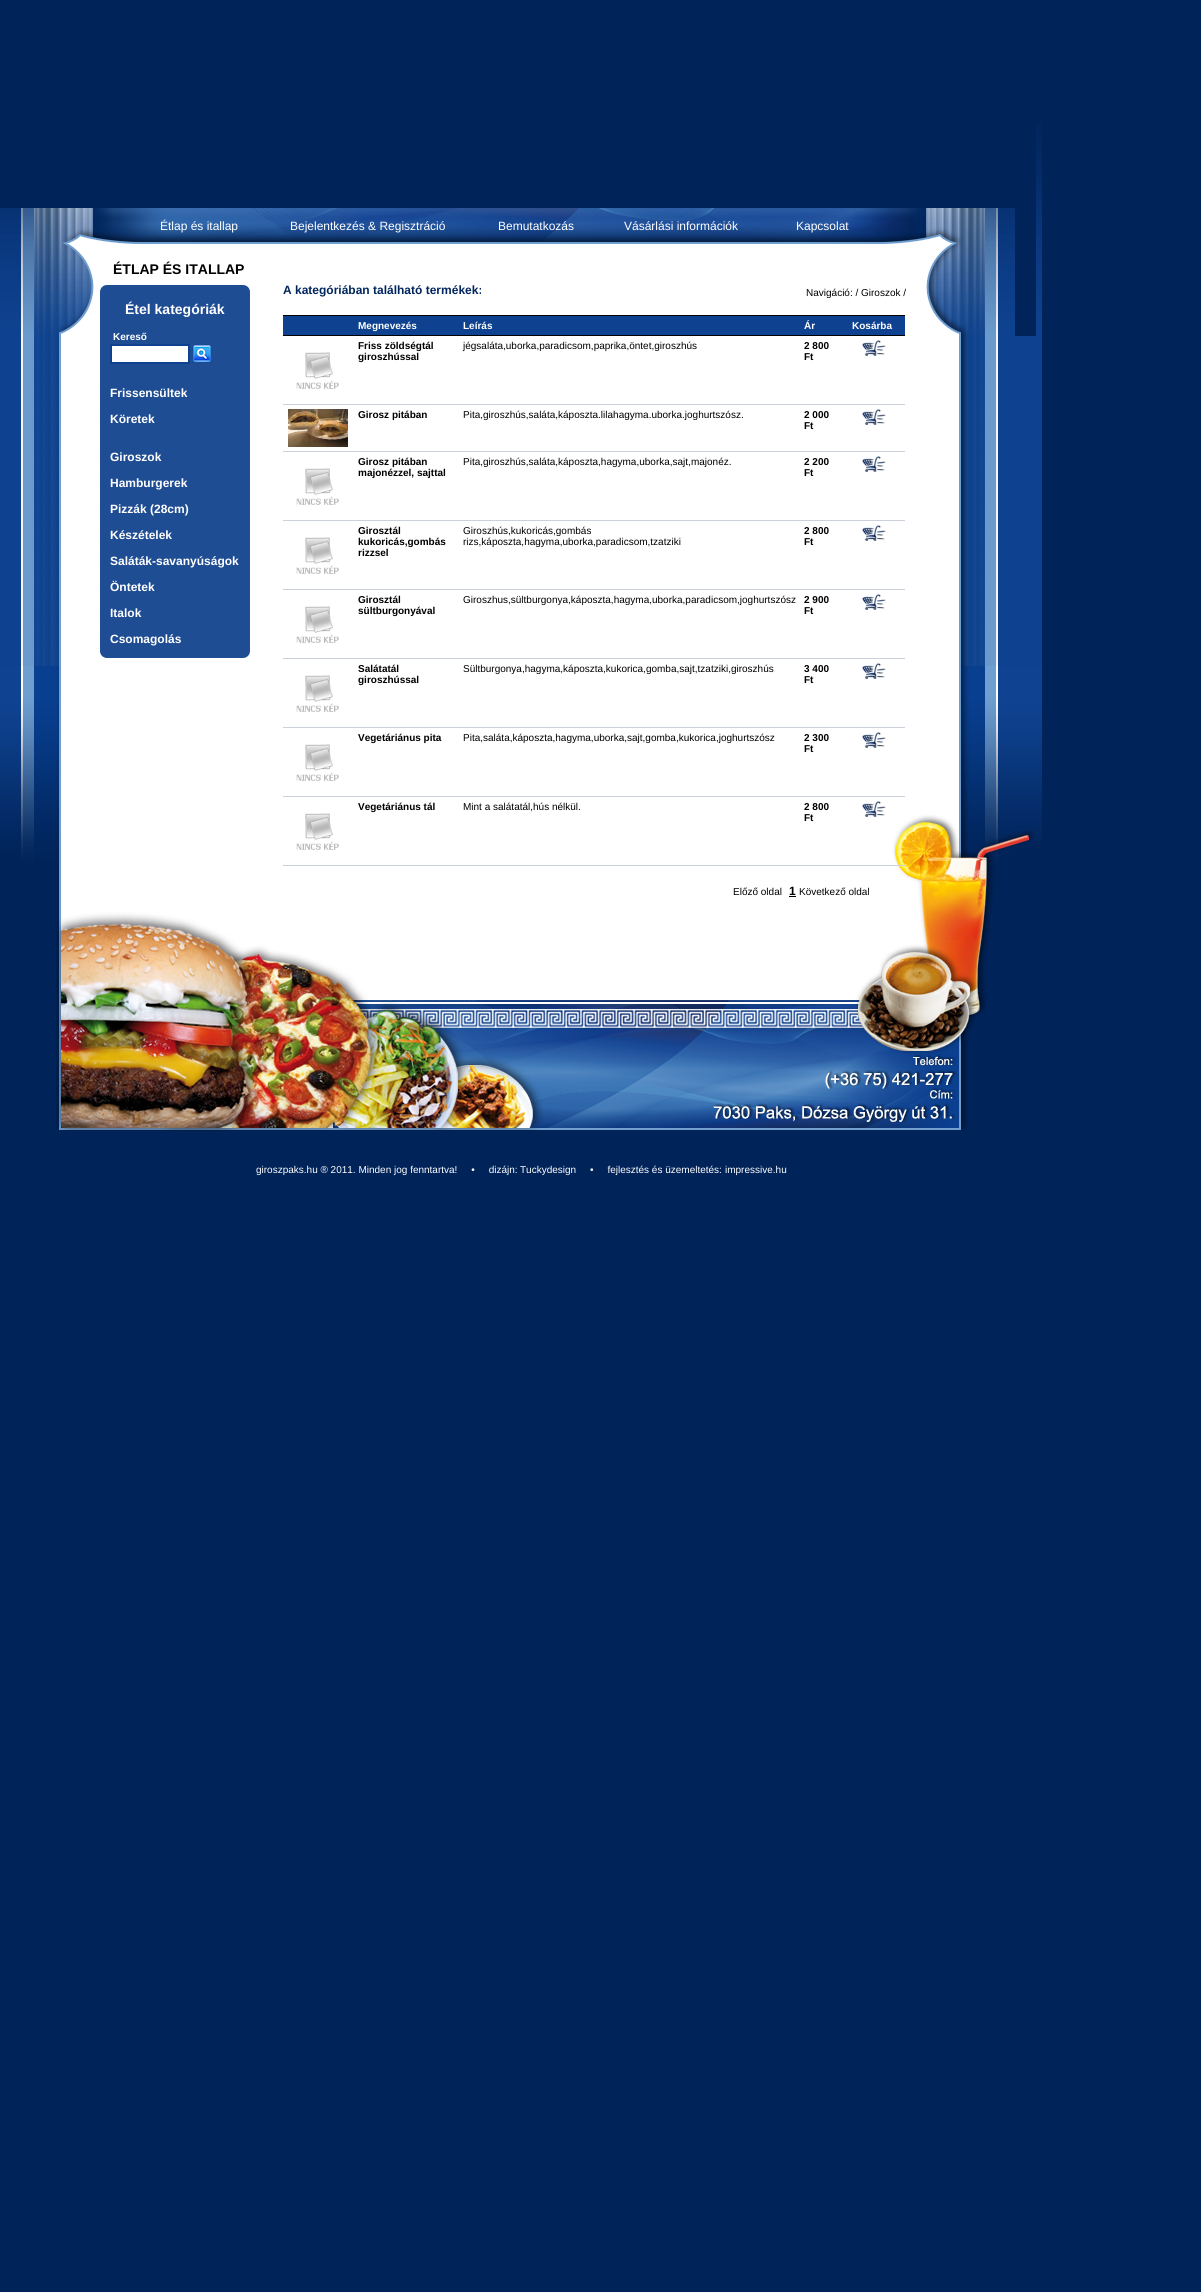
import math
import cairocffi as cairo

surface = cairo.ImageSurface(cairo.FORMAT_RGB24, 1201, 2292)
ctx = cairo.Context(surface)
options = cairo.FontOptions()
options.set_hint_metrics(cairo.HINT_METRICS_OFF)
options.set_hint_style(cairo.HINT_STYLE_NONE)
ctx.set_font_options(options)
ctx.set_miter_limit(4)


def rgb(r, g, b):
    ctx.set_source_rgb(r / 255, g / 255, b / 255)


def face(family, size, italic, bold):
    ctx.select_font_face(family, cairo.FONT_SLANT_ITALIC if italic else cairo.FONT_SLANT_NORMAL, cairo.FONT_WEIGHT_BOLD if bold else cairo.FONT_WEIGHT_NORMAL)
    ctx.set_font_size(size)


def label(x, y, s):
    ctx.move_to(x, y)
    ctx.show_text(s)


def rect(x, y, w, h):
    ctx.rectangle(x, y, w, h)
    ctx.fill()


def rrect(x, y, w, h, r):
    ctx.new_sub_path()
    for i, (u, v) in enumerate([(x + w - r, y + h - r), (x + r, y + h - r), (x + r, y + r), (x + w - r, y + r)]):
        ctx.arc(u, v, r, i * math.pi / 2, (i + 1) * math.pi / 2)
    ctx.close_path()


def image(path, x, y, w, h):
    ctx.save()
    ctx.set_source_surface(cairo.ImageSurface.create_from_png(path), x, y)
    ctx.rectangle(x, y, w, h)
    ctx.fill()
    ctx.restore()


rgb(0, 35, 89)
ctx.paint()
image('image0.png', 0, 208, 95, 36)
image('image1.png', 95, 208, 831, 36)
face('Liberation Sans', 12, 0, 0)
rgb(255, 255, 255)
label(160, 230, 'Étlap és itallap')
label(290, 230, 'Bejelentkezés & Regisztráció')
label(498, 230, 'Bemutatkozás')
label(624, 230, 'Vásárlási információk')
label(796, 230, 'Kapcsolat')
image('image2.png', 926, 208, 89, 36)
image('image3.png', 1036, 123, 6, 213)
image('image4.png', 0, 244, 95, 92)
rect(95, 244, 831, 92)
image('image5.png', 926, 244, 89, 92)
image('image6.png', 0, 336, 1042, 330)
face('Liberation Sans', 14, 0, 1)
rgb(0, 0, 0)
label(113, 274, 'ÉTLAP ÉS ITALLAP')
rgb(31, 77, 148)
rrect(100, 285, 150, 373, 7)
ctx.fill()
rgb(255, 255, 255)
label(125, 314, 'Étel kategóriák')
face('Liberation Sans', 10, 0, 1)
label(113, 340, 'Kereső')
ctx.rectangle(111, 345, 78, 18)
ctx.fill_preserve()
rgb(14, 66, 144)
ctx.stroke()
image('image7.png', 192, 344, 20, 20)
face('Liberation Sans', 12, 0, 1)
rgb(255, 255, 255)
label(110, 397, 'Frissensültek')
label(110, 423, 'Köretek')
label(110, 461, 'Giroszok')
label(110, 487, 'Hamburgerek')
label(110, 513, 'Pizzák (28cm)')
label(110, 539, 'Készételek')
label(110, 565, 'Saláták-savanyúságok')
label(110, 591, 'Öntetek')
label(110, 617, 'Italok')
label(110, 643, 'Csomagolás')
rgb(1, 37, 93)
label(283, 294, 'A kategóriában található termékek:')
face('Liberation Sans', 10, 0, 0)
rgb(0, 0, 0)
label(806, 296, 'Navigáció: / Giroszok /')
rgb(14, 66, 144)
rect(283, 316, 622, 19)
rgb(0, 0, 0)
rect(283, 315, 622, 1)
rect(283, 335, 622, 1)
face('Liberation Sans', 10, 0, 1)
rgb(255, 255, 255)
label(358, 329, 'Megnevezés')
label(463, 329, 'Leírás')
label(804, 329, 'Ár')
label(852, 329, 'Kosárba')
rgb(0, 0, 0)
label(358, 349, 'Friss zöldségtál')
label(358, 360, 'giroszhússal')
face('Liberation Sans', 10, 0, 0)
label(463, 349, 'jégsaláta,uborka,paradicsom,paprika,öntet,giroszhús')
face('Liberation Sans', 10, 0, 1)
label(804, 349, '2 800')
label(804, 360, 'Ft')
image('image8.png', 862, 340, 24, 16)
rgb(202, 209, 218)
rect(283, 404, 622, 1)
image('image9.png', 296, 352, 43, 37)
rect(283, 451, 622, 1)
image('image10.png', 288, 409, 60, 38)
rgb(0, 0, 0)
label(358, 418, 'Girosz pitában')
face('Liberation Sans', 10, 0, 0)
label(463, 418, 'Pita,giroszhús,saláta,káposzta.lilahagyma.uborka.joghurtszósz.')
face('Liberation Sans', 10, 0, 1)
label(804, 418, '2 000')
label(804, 429, 'Ft')
image('image8.png', 862, 409, 24, 16)
label(358, 465, 'Girosz pitában')
label(358, 476, 'majonézzel, sajttal')
face('Liberation Sans', 10, 0, 0)
label(463, 465, 'Pita,giroszhús,saláta,káposzta,hagyma,uborka,sajt,majonéz.')
face('Liberation Sans', 10, 0, 1)
label(804, 465, '2 200')
label(804, 476, 'Ft')
image('image8.png', 862, 456, 24, 16)
rgb(202, 209, 218)
rect(283, 520, 622, 1)
image('image9.png', 296, 468, 43, 37)
rgb(0, 0, 0)
label(358, 534, 'Girosztál')
label(358, 545, 'kukoricás,gombás')
label(358, 556, 'rizzsel')
face('Liberation Sans', 10, 0, 0)
label(463, 534, 'Giroszhús,kukoricás,gombás')
label(463, 545, 'rizs,káposzta,hagyma,uborka,paradicsom,tzatziki')
face('Liberation Sans', 10, 0, 1)
label(804, 534, '2 800')
label(804, 545, 'Ft')
image('image8.png', 862, 525, 24, 16)
rgb(202, 209, 218)
rect(283, 589, 622, 1)
image('image9.png', 296, 537, 43, 37)
rgb(0, 0, 0)
label(358, 603, 'Girosztál')
label(358, 614, 'sültburgonyával')
face('Liberation Sans', 10, 0, 0)
label(463, 603, 'Giroszhus,sültburgonya,káposzta,hagyma,uborka,paradicsom,joghurtszósz')
face('Liberation Sans', 10, 0, 1)
label(804, 603, '2 900')
label(804, 614, 'Ft')
image('image8.png', 862, 594, 24, 16)
rgb(202, 209, 218)
rect(283, 658, 622, 1)
image('image9.png', 296, 606, 43, 37)
rgb(255, 255, 255)
rect(61, 666, 898, 148)
rgb(0, 0, 0)
label(358, 672, 'Salátatál')
label(358, 683, 'giroszhússal')
face('Liberation Sans', 10, 0, 0)
label(463, 672, 'Sültburgonya,hagyma,káposzta,kukorica,gomba,sajt,tzatziki,giroszhús')
face('Liberation Sans', 10, 0, 1)
label(804, 672, '3 400')
label(804, 683, 'Ft')
image('image8.png', 862, 663, 24, 16)
rgb(202, 209, 218)
rect(283, 727, 622, 1)
image('image9.png', 296, 675, 43, 37)
rgb(0, 0, 0)
label(358, 741, 'Vegetáriánus pita')
face('Liberation Sans', 10, 0, 0)
label(463, 741, 'Pita,saláta,káposzta,hagyma,uborka,sajt,gomba,kukorica,joghurtszósz')
face('Liberation Sans', 10, 0, 1)
label(804, 741, '2 300')
label(804, 752, 'Ft')
image('image8.png', 862, 732, 24, 16)
rgb(202, 209, 218)
rect(283, 796, 622, 1)
image('image9.png', 296, 744, 43, 37)
rgb(0, 0, 0)
label(358, 810, 'Vegetáriánus tál')
face('Liberation Sans', 10, 0, 0)
label(463, 810, 'Mint a salátatál,hús nélkül.')
face('Liberation Sans', 10, 0, 1)
label(804, 810, '2 800')
rgb(255, 255, 255)
rect(61, 814, 828, 98)
rgb(0, 0, 0)
label(804, 821, 'Ft')
image('image8.png', 862, 801, 24, 16)
image('image15.png', 889, 814, 70, 98)
rgb(202, 209, 218)
rect(283, 865, 622, 1)
image('image9.png', 296, 813, 43, 37)
face('Liberation Sans', 10, 0, 0)
rgb(0, 0, 0)
label(733, 895, 'Előző oldal')
face('Liberation Sans', 12, 0, 1)
label(789, 895, '1')
rect(789, 896, 7, 1)
face('Liberation Sans', 10, 0, 0)
label(799, 895, 'Következő oldal')
image('image11.png', 0, 666, 61, 246)
image('image12.png', 959, 666, 56, 148)
image('image13.png', 1015, 666, 21, 180)
image('image14.png', 1036, 666, 6, 177)
image('image16.png', 959, 814, 56, 98)
image('image17.png', 56, 912, 5, 218)
image('image18.png', 61, 912, 310, 219)
rgb(255, 255, 255)
rect(371, 912, 480, 85)
image('image19.png', 851, 912, 140, 85)
image('image20.png', 371, 997, 615, 134)
label(256, 1173, 'giroszpaks.hu ® 2011. Minden jog fenntartva!     •     dizájn:')
label(520, 1173, 'Tuckydesign')
label(590, 1173, '•     fejlesztés és üzemeltetés:')
label(725, 1173, 'impressive.hu')
surface.write_to_png('render.png')
